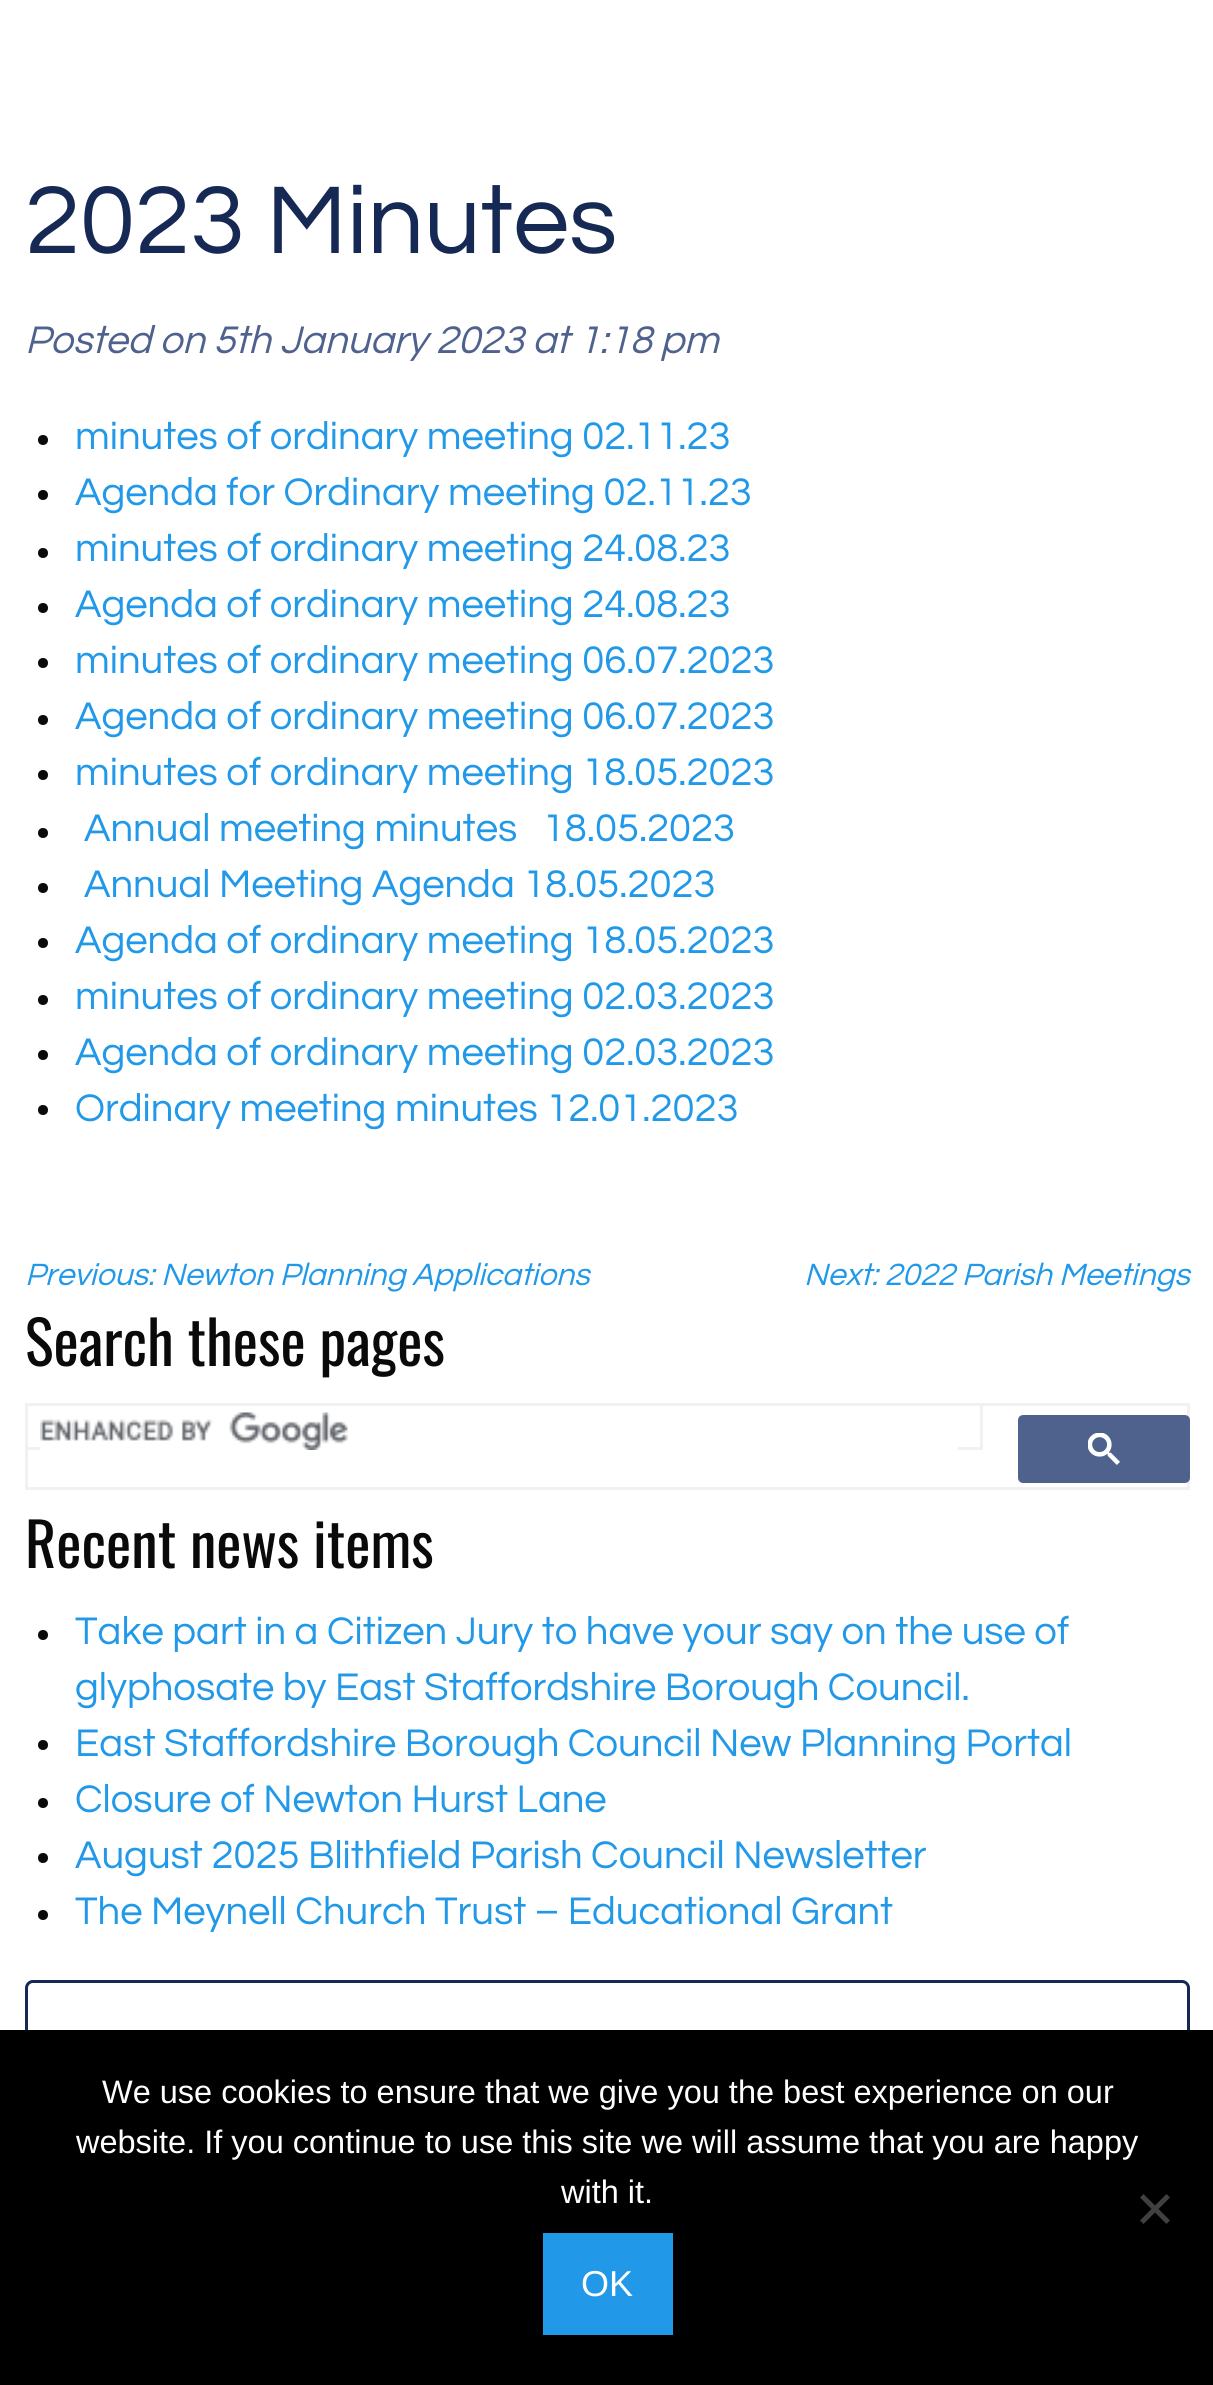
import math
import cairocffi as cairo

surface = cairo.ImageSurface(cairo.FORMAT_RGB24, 1213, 2385)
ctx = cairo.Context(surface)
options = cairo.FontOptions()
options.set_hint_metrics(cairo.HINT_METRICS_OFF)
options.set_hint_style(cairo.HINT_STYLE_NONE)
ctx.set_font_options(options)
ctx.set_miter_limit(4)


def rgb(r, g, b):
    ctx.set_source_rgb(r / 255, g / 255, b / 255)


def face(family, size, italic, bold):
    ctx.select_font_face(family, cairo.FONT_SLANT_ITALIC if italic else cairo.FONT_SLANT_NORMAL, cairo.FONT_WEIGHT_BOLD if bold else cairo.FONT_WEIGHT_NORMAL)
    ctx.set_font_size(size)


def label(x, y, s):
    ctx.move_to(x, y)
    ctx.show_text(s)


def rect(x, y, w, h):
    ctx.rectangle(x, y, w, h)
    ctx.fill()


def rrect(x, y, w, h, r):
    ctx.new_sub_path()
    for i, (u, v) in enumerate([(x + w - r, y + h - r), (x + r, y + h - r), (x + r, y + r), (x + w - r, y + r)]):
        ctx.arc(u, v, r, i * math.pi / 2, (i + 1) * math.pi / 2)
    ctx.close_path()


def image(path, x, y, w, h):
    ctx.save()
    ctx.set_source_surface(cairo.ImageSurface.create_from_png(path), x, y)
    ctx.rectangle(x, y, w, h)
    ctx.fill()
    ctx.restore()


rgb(255, 255, 255)
ctx.paint()
face('Questrial', 100, 0, 0)
rgb(22, 41, 85)
label(25, 253, '2023 Minutes')
face('Questrial', 40, 1, 0)
rgb(79, 98, 142)
label(25, 353, 'Posted on 5th January 2023 at 1:18 pm')
rgb(10, 10, 10)
ctx.new_path()
ctx.arc(43, 440, 5, 0, 2 * math.pi)
ctx.fill()
face('Questrial', 40, 0, 0)
rgb(33, 153, 232)
label(75, 449, 'minutes of ordinary meeting 02.11.23')
rgb(10, 10, 10)
ctx.new_path()
ctx.arc(43, 495, 5, 0, 2 * math.pi)
ctx.fill()
rgb(33, 153, 232)
label(75, 505, 'Agenda for Ordinary meeting 02.11.23')
rgb(10, 10, 10)
ctx.new_path()
ctx.arc(43, 553, 5, 0, 2 * math.pi)
ctx.fill()
rgb(33, 153, 232)
label(75, 561, 'minutes of ordinary meeting 24.08.23')
rgb(10, 10, 10)
ctx.new_path()
ctx.arc(43, 608, 5, 0, 2 * math.pi)
ctx.fill()
rgb(33, 153, 232)
label(75, 617, 'Agenda of ordinary meeting 24.08.23')
rgb(10, 10, 10)
ctx.new_path()
ctx.arc(43, 663, 5, 0, 2 * math.pi)
ctx.fill()
rgb(33, 153, 232)
label(75, 673, 'minutes of ordinary meeting 06.07.2023')
rgb(10, 10, 10)
ctx.new_path()
ctx.arc(43, 720, 5, 0, 2 * math.pi)
ctx.fill()
rgb(33, 153, 232)
label(75, 729, 'Agenda of ordinary meeting 06.07.2023')
rgb(10, 10, 10)
ctx.new_path()
ctx.arc(43, 775, 5, 0, 2 * math.pi)
ctx.fill()
rgb(33, 153, 232)
label(75, 785, 'minutes of ordinary meeting 18.05.2023')
rgb(10, 10, 10)
ctx.new_path()
ctx.arc(43, 833, 5, 0, 2 * math.pi)
ctx.fill()
rgb(33, 153, 232)
label(84, 841, 'Annual meeting minutes   18.05.2023')
rgb(10, 10, 10)
ctx.new_path()
ctx.arc(43, 888, 5, 0, 2 * math.pi)
ctx.fill()
rgb(33, 153, 232)
label(84, 897, 'Annual Meeting Agenda 18.05.2023')
rgb(10, 10, 10)
ctx.new_path()
ctx.arc(43, 943, 5, 0, 2 * math.pi)
ctx.fill()
rgb(33, 153, 232)
label(75, 953, 'Agenda of ordinary meeting 18.05.2023')
rgb(10, 10, 10)
ctx.new_path()
ctx.arc(43, 1000, 5, 0, 2 * math.pi)
ctx.fill()
rgb(33, 153, 232)
label(75, 1009, 'minutes of ordinary meeting 02.03.2023')
rgb(10, 10, 10)
ctx.new_path()
ctx.arc(43, 1055, 5, 0, 2 * math.pi)
ctx.fill()
rgb(33, 153, 232)
label(75, 1065, 'Agenda of ordinary meeting 02.03.2023')
rgb(10, 10, 10)
ctx.new_path()
ctx.arc(43, 1110, 5, 0, 2 * math.pi)
ctx.fill()
rgb(33, 153, 232)
label(75, 1121, 'Ordinary meeting minutes 12.01.2023')
face('Questrial', 32, 1, 0)
label(25, 1285, 'Previous: Newton Planning Applications')
label(804, 1285, 'Next: 2022 Parish Meetings')
face('Oswald', 60, 0, 0)
rgb(10, 10, 10)
label(25, 1366, 'Search these pages')
ctx.rectangle(26.5, 1404.5, 1162, 84)
rgb(241, 241, 241)
ctx.set_line_width(3)
ctx.stroke()
ctx.rectangle(26.5, 1404.5, 955, 44)
ctx.stroke()
rgb(255, 255, 255)
rect(40, 1447, 918, 3)
image('image0.png', 40, 1412, 308, 38)
rgb(79, 98, 142)
rrect(1019.5, 1416.5, 169, 65, 3.5)
ctx.fill_preserve()
ctx.stroke()
image('image1.png', 1088, 1433, 32, 32)
rgb(10, 10, 10)
label(25, 1568, 'Recent news items')
ctx.new_path()
ctx.arc(43, 1635, 5, 0, 2 * math.pi)
ctx.fill()
face('Questrial', 40, 0, 0)
rgb(33, 153, 232)
label(75, 1644, 'Take part in a Citizen Jury to have your say on the use of')
label(75, 1700, 'glyphosate by East Staffordshire Borough Council.')
rgb(10, 10, 10)
ctx.new_path()
ctx.arc(43, 1745, 5, 0, 2 * math.pi)
ctx.fill()
rgb(33, 153, 232)
label(75, 1756, 'East Staffordshire Borough Council New Planning Portal')
rgb(10, 10, 10)
ctx.new_path()
ctx.arc(43, 1803, 5, 0, 2 * math.pi)
ctx.fill()
rgb(33, 153, 232)
label(75, 1812, 'Closure of Newton Hurst Lane')
rgb(10, 10, 10)
ctx.new_path()
ctx.arc(43, 1858, 5, 0, 2 * math.pi)
ctx.fill()
rgb(33, 153, 232)
label(75, 1868, 'August 2025 Blithfield Parish Council Newsletter')
rgb(10, 10, 10)
ctx.new_path()
ctx.arc(43, 1915, 5, 0, 2 * math.pi)
ctx.fill()
rgb(33, 153, 232)
label(75, 1924, 'The Meynell Church Trust – Educational Grant')
rrect(26.5, 1981.5, 1162, 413, 6.5)
rgb(22, 41, 85)
ctx.stroke()
rgb(0, 0, 0)
rect(0, 2030, 1213, 355)
face('Liberation Sans', 32.5, 0, 0)
rgb(255, 255, 255)
label(102, 2103, 'We use cookies to ensure that we give you the best experience on our')
label(76, 2153, 'website. If you continue to use this site we will assume that you are happy')
label(561, 2203, 'with it.')
rgb(64, 64, 64)
ctx.new_path()
ctx.move_to(1166.5, 2194)
ctx.line_to(1170, 2197.5)
ctx.line_to(1143.5, 2224)
ctx.line_to(1140, 2220.5)
ctx.close_path()
ctx.fill()
ctx.new_path()
ctx.move_to(1140, 2197.5)
ctx.line_to(1143.5, 2194)
ctx.line_to(1170, 2220.5)
ctx.line_to(1166.5, 2224)
ctx.close_path()
ctx.fill()
rgb(33, 153, 232)
rect(543, 2233, 130, 102)
face('Liberation Sans', 36, 0, 0)
rgb(255, 255, 255)
label(581, 2296, 'OK')
surface.write_to_png('render.png')
